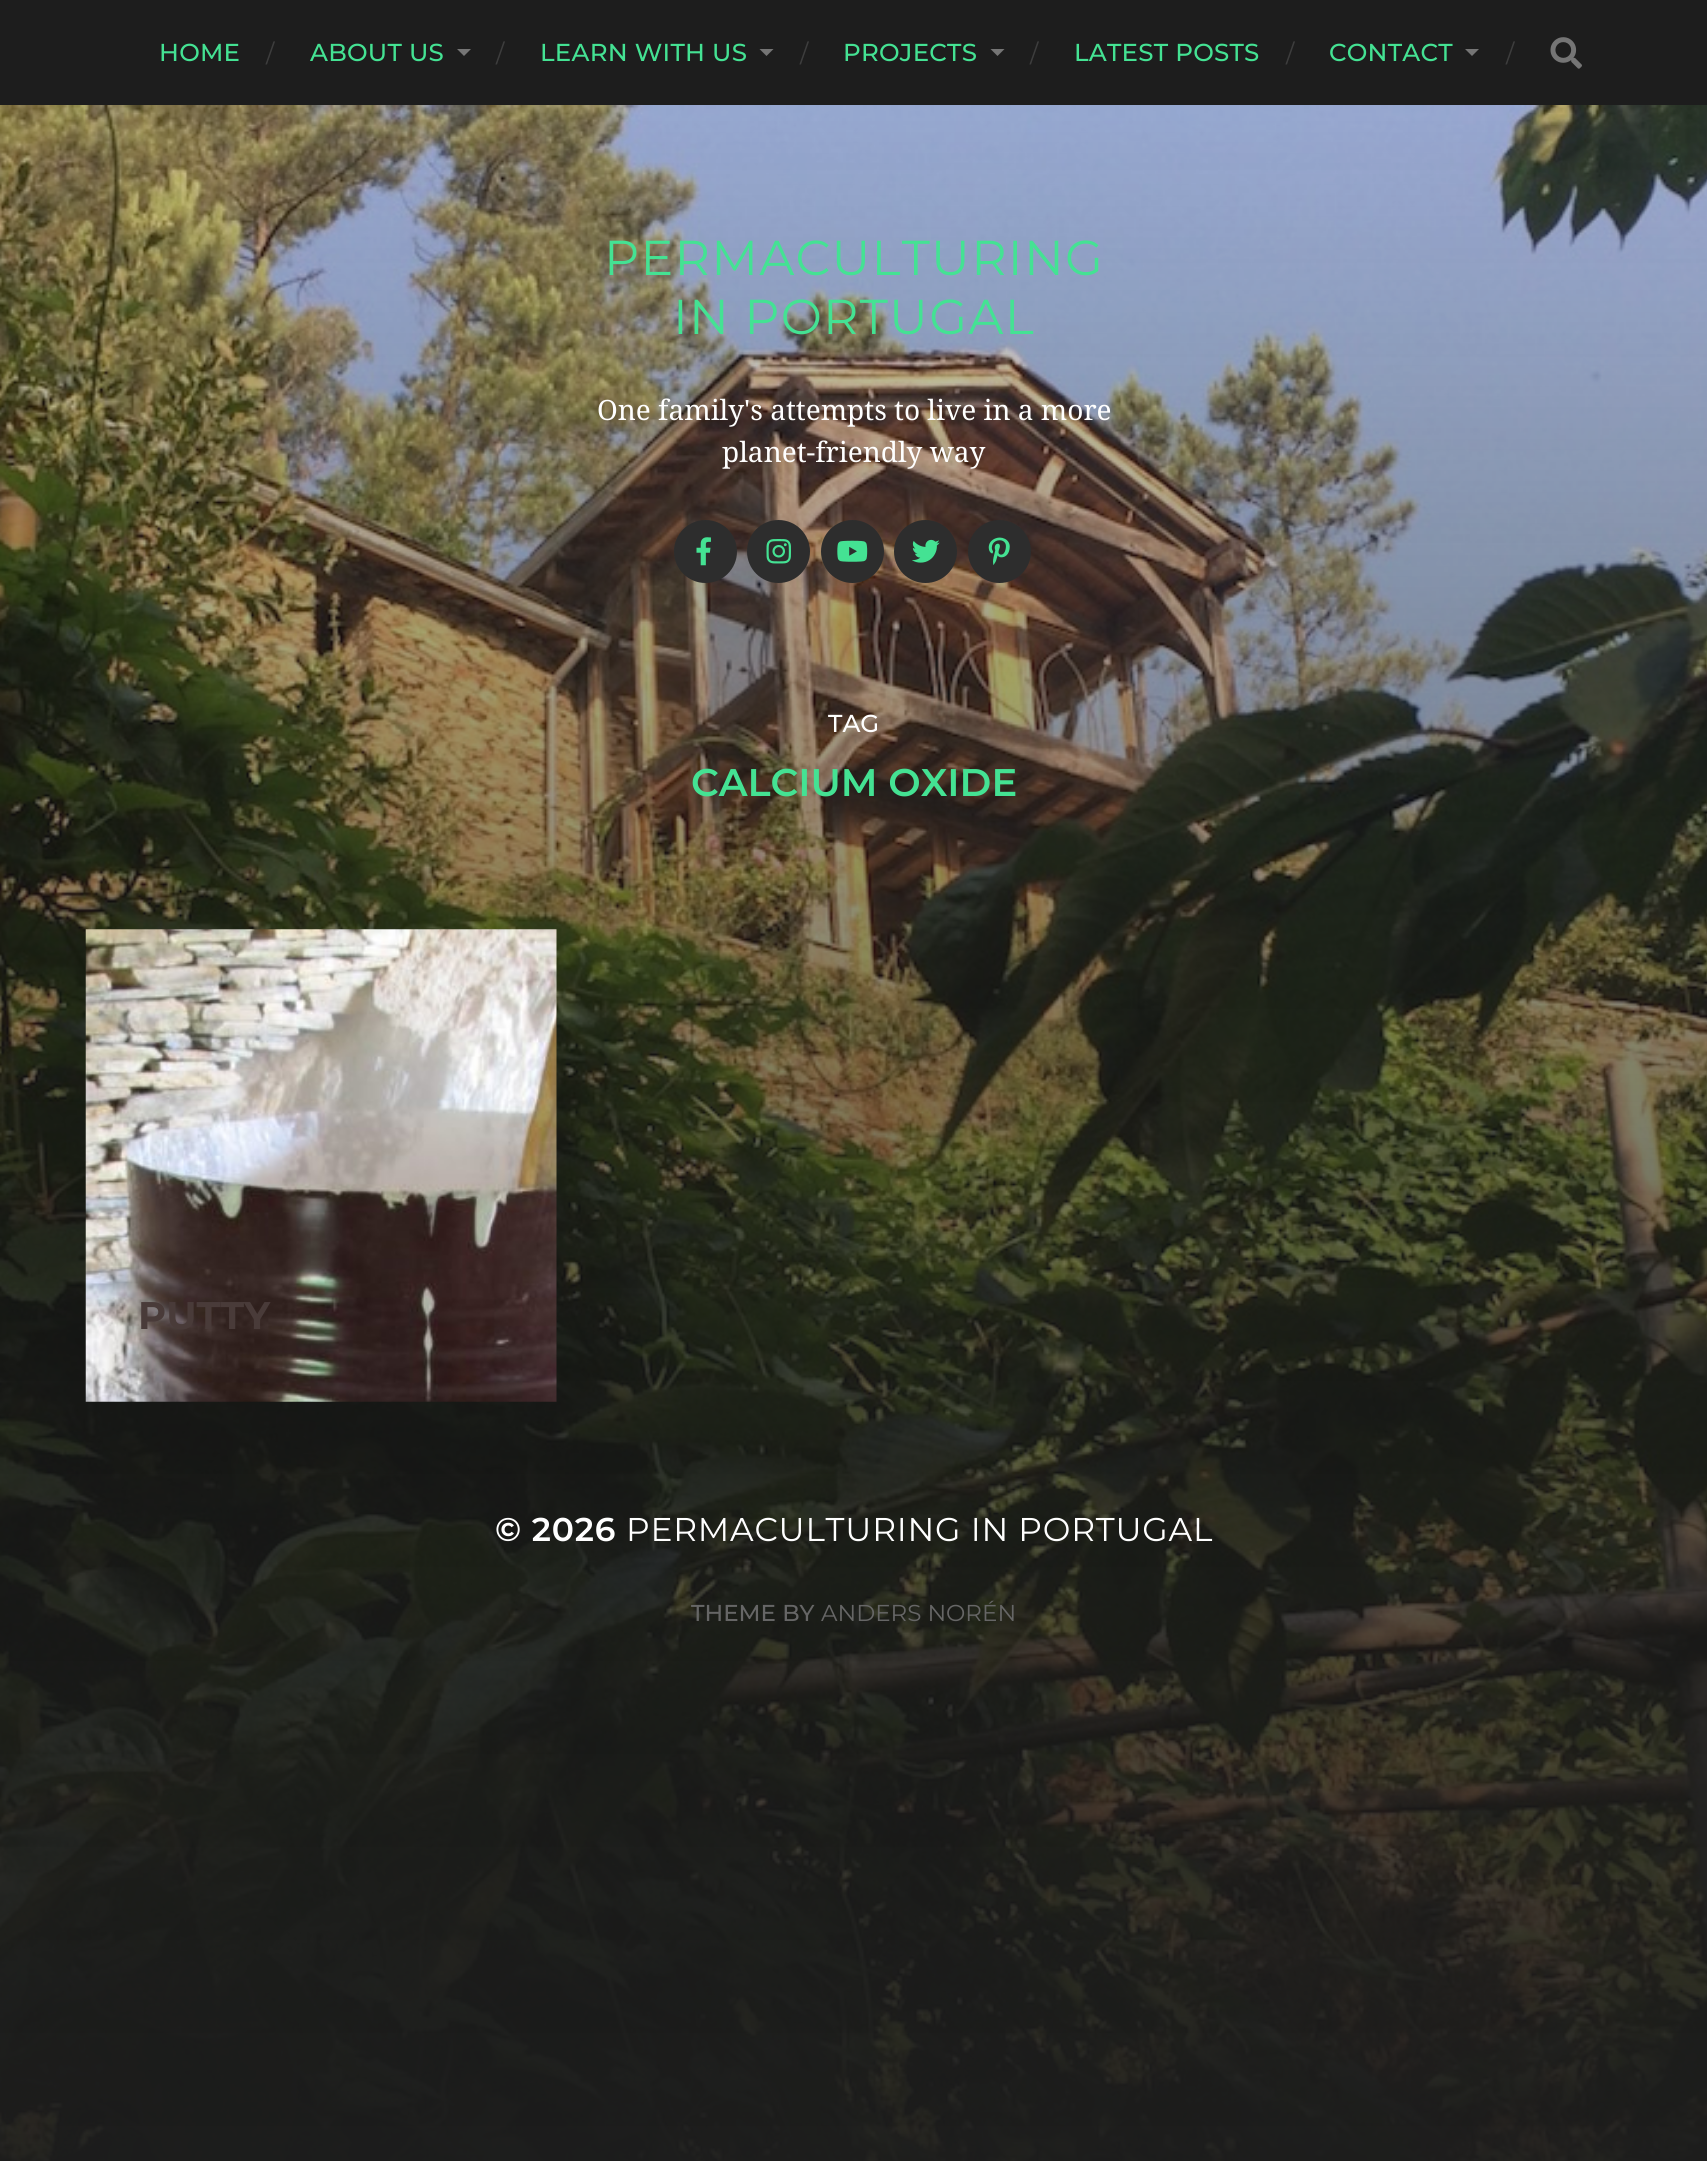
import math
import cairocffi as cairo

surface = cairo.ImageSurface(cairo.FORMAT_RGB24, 1707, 2161)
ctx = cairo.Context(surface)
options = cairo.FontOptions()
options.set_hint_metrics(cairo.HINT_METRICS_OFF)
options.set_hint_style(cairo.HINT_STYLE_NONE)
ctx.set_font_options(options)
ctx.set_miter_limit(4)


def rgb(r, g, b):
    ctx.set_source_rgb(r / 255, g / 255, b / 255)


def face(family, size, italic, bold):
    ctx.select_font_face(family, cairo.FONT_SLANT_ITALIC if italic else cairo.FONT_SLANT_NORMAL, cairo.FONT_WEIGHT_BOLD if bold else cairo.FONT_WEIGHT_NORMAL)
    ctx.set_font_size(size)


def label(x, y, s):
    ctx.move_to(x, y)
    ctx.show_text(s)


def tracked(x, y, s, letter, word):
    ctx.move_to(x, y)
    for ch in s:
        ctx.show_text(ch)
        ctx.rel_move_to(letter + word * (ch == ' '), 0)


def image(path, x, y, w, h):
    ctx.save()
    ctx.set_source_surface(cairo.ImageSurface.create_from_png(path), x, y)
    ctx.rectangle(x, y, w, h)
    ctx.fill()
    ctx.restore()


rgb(29, 29, 29)
ctx.paint()
face('Montserrat Medium', 24.5, 0, 0)
rgb(68, 226, 147)
tracked(159, 61, 'HOME', 0.25, 0)
face('Montserrat', 24.5, 0, 0)
rgb(61, 61, 61)
label(266, 62, '/')
face('Montserrat Medium', 24.5, 0, 0)
rgb(68, 226, 147)
tracked(310, 61, 'ABOUT US', 0.25, 0)
rgb(117, 117, 117)
ctx.new_path()
ctx.move_to(457, 49)
ctx.line_to(471, 49)
ctx.line_to(464, 56)
ctx.close_path()
ctx.fill()
face('Montserrat', 24.5, 0, 0)
rgb(61, 61, 61)
label(496, 62, '/')
face('Montserrat Medium', 24.5, 0, 0)
rgb(68, 226, 147)
tracked(540, 61, 'LEARN WITH US', 0.25, 0)
rgb(117, 117, 117)
ctx.new_path()
ctx.move_to(759.5, 49)
ctx.line_to(773.5, 49)
ctx.line_to(766.5, 56)
ctx.close_path()
ctx.fill()
face('Montserrat', 24.5, 0, 0)
rgb(61, 61, 61)
label(800, 62, '/')
face('Montserrat Medium', 24.5, 0, 0)
rgb(68, 226, 147)
tracked(843, 61, 'PROJECTS', 0.25, 0)
rgb(117, 117, 117)
ctx.new_path()
ctx.move_to(990.5, 49)
ctx.line_to(1004.5, 49)
ctx.line_to(997.5, 56)
ctx.close_path()
ctx.fill()
face('Montserrat', 24.5, 0, 0)
rgb(61, 61, 61)
label(1030, 62, '/')
face('Montserrat Medium', 24.5, 0, 0)
rgb(68, 226, 147)
tracked(1074, 61, 'LATEST POSTS', 0.25, 0)
face('Montserrat', 24.5, 0, 0)
rgb(61, 61, 61)
label(1286, 62, '/')
face('Montserrat Medium', 24.5, 0, 0)
rgb(68, 226, 147)
tracked(1329, 61, 'CONTACT', 0.25, 0)
rgb(117, 117, 117)
ctx.new_path()
ctx.move_to(1465, 49)
ctx.line_to(1479, 49)
ctx.line_to(1472, 56)
ctx.close_path()
ctx.fill()
face('Montserrat', 24.5, 0, 0)
rgb(61, 61, 61)
label(1506, 62, '/')
image('image0.png', 1550, 37, 32, 32)
image('image1.png', 0, 105, 1707, 2056)
face('Montserrat', 49, 0, 0)
rgb(68, 226, 147)
tracked(604, 275, 'PERMACULTURING', 1.25, 0)
tracked(673, 334, 'IN PORTUGAL', 1.25, 0)
face('Droid Serif', 28, 0, 0)
rgb(255, 255, 255)
label(597, 420, 'One family\'s attempts to live in a more')
label(722, 462, 'planet-friendly way')
rgb(45, 45, 45)
ctx.new_path()
ctx.arc(705.5, 551.5, 31.5, 0, 2 * math.pi)
ctx.fill()
image('image2.png', 696, 537, 15, 29)
ctx.arc(778.5, 551.5, 31.5, 0, 2 * math.pi)
ctx.fill()
image('image3.png', 766, 539, 25, 25)
ctx.arc(852.5, 551.5, 31.5, 0, 2 * math.pi)
ctx.fill()
image('image4.png', 837, 540, 31, 22)
ctx.arc(925.5, 551.5, 31.5, 0, 2 * math.pi)
ctx.fill()
image('image5.png', 912, 539, 28, 24)
ctx.arc(999.5, 551.5, 31.5, 0, 2 * math.pi)
ctx.fill()
image('image6.png', 988, 537, 22, 28)
face('Montserrat Medium', 24.5, 0, 0)
rgb(255, 255, 255)
label(828, 732, 'TAG')
face('Montserrat SemiBold', 38.5, 0, 0)
rgb(68, 226, 147)
label(691, 796, 'CALCIUM OXIDE')
image('image7.png', 85, 929, 472, 473)
face('Montserrat', 38.5, 0, 1)
rgb(73, 59, 57)
label(138, 1329, 'PUTTY')
face('Montserrat SemiBold', 32.9, 0, 0)
rgb(255, 255, 255)
tracked(495, 1541, '© 2026', 0.8, 0)
face('Montserrat', 32.9, 0, 0)
tracked(626, 1541, 'PERMACULTURING IN PORTUGAL', 0.8, 0)
face('Montserrat Medium', 23, 0, 0)
rgb(102, 102, 102)
label(691, 1621, 'THEME BY')
face('Montserrat', 23, 0, 0)
label(821, 1621, 'ANDERS NORÉN')
surface.write_to_png('render.png')
